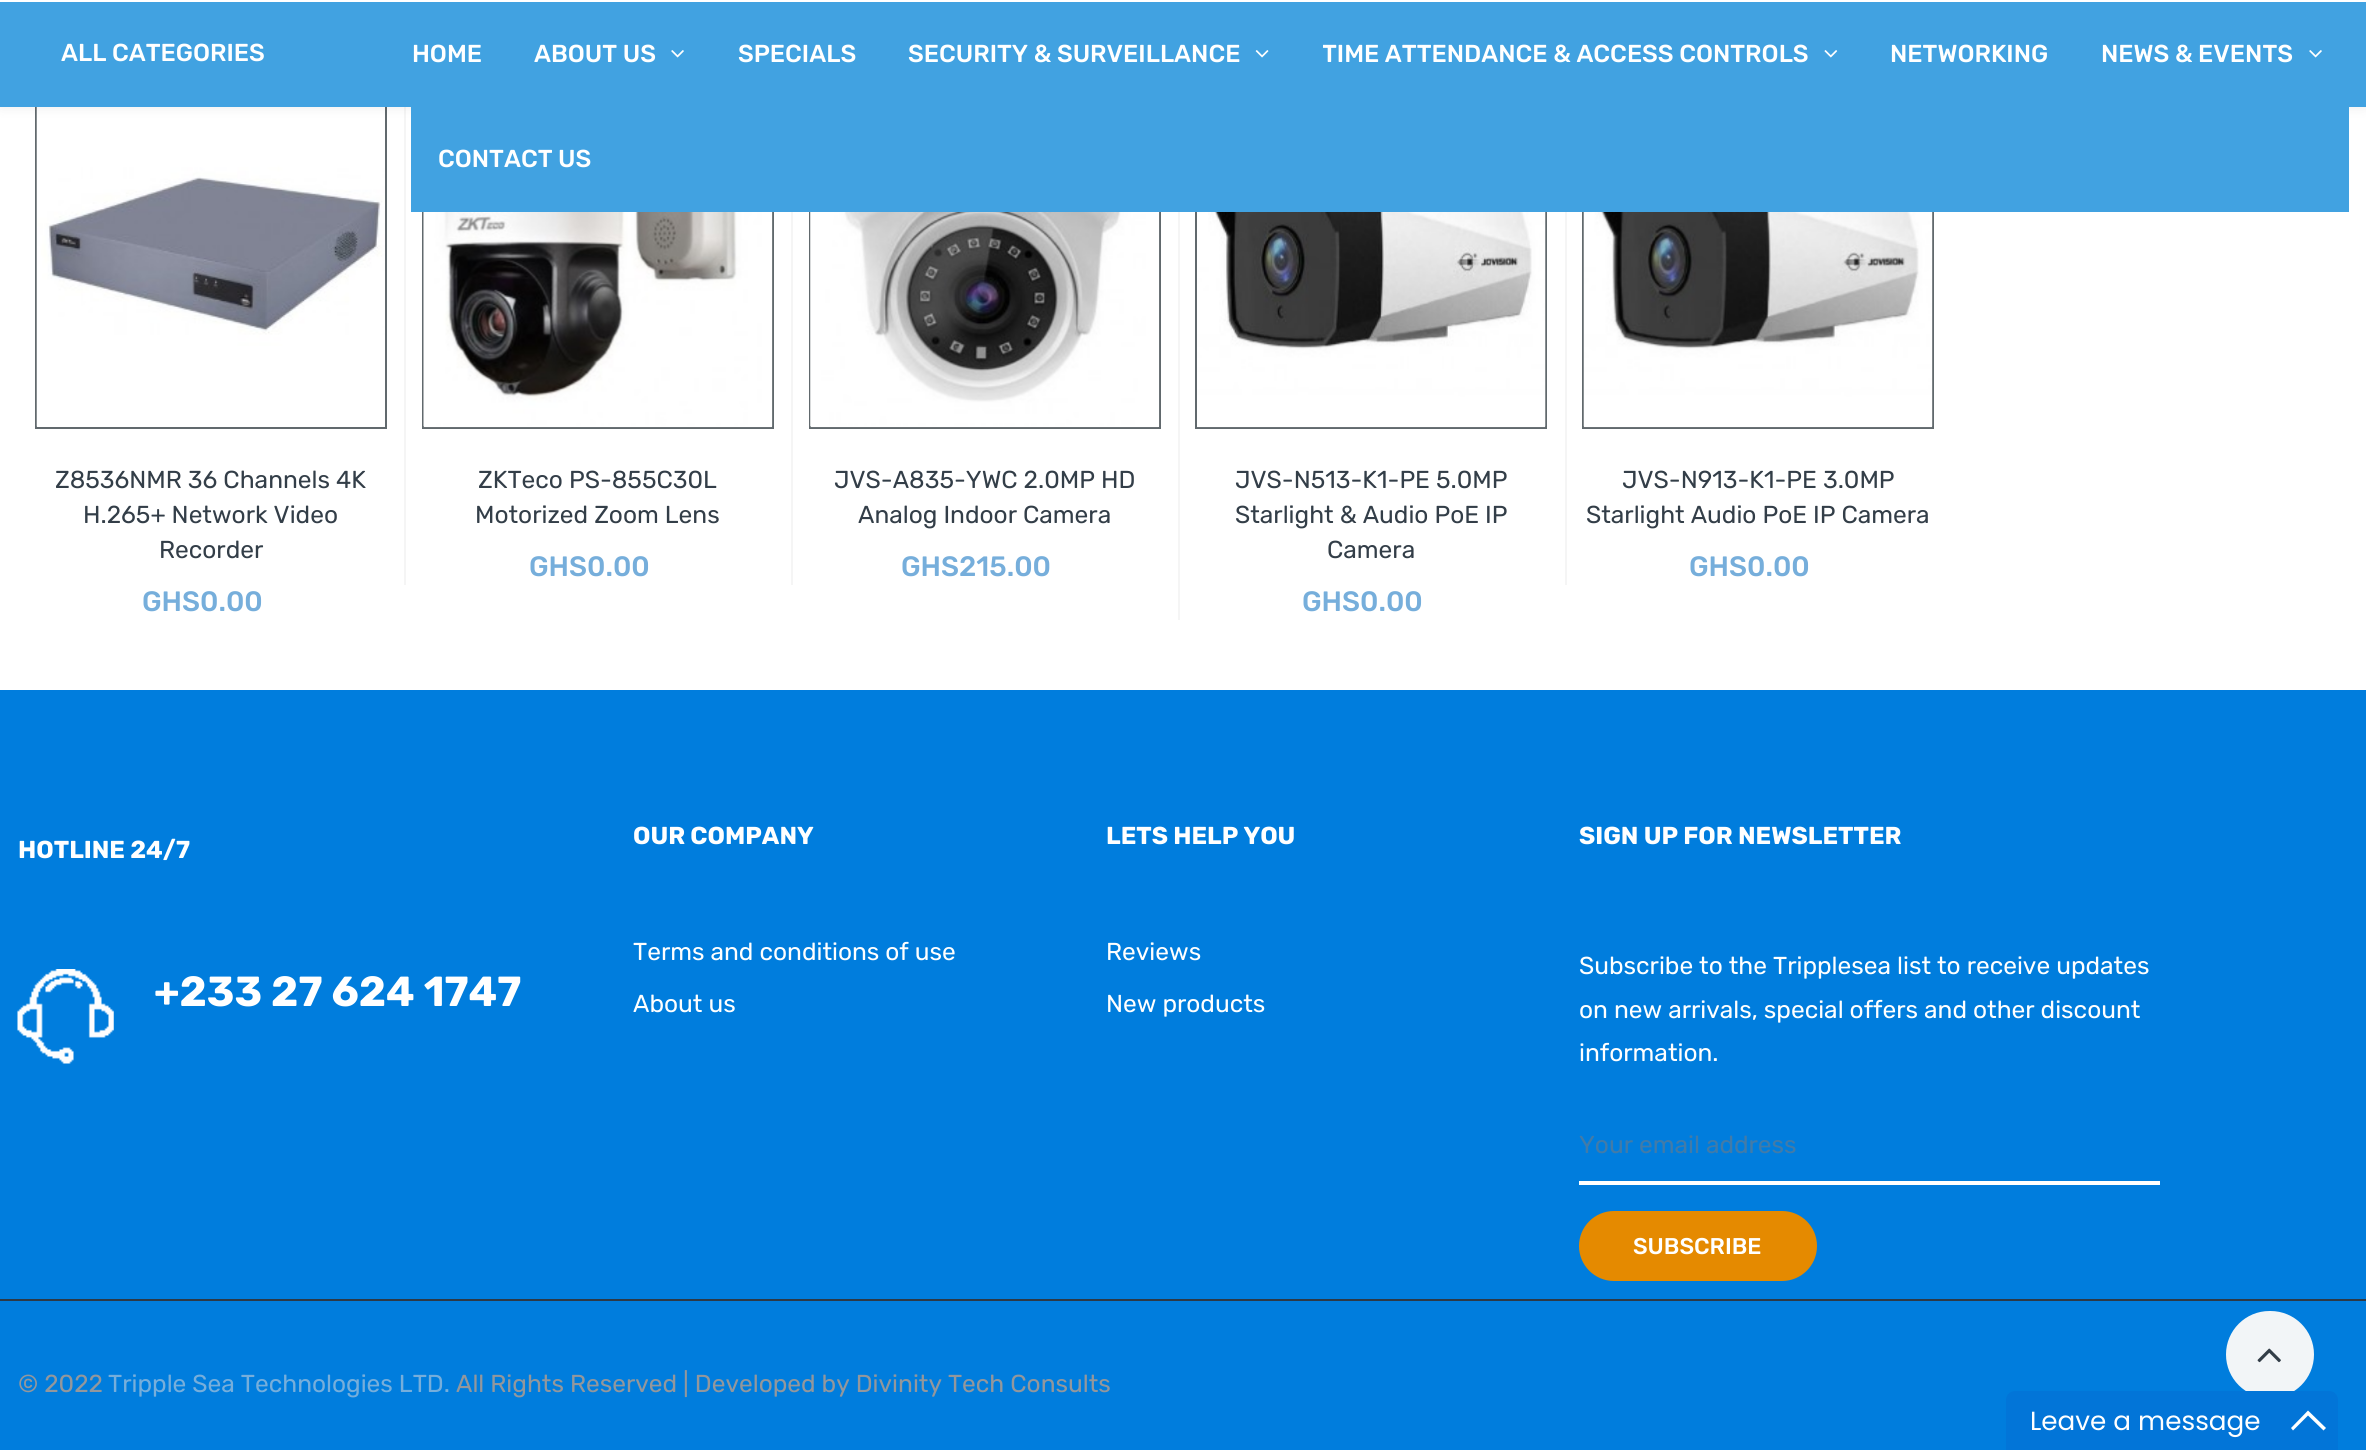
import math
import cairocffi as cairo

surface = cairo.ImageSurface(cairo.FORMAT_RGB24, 2366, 1450)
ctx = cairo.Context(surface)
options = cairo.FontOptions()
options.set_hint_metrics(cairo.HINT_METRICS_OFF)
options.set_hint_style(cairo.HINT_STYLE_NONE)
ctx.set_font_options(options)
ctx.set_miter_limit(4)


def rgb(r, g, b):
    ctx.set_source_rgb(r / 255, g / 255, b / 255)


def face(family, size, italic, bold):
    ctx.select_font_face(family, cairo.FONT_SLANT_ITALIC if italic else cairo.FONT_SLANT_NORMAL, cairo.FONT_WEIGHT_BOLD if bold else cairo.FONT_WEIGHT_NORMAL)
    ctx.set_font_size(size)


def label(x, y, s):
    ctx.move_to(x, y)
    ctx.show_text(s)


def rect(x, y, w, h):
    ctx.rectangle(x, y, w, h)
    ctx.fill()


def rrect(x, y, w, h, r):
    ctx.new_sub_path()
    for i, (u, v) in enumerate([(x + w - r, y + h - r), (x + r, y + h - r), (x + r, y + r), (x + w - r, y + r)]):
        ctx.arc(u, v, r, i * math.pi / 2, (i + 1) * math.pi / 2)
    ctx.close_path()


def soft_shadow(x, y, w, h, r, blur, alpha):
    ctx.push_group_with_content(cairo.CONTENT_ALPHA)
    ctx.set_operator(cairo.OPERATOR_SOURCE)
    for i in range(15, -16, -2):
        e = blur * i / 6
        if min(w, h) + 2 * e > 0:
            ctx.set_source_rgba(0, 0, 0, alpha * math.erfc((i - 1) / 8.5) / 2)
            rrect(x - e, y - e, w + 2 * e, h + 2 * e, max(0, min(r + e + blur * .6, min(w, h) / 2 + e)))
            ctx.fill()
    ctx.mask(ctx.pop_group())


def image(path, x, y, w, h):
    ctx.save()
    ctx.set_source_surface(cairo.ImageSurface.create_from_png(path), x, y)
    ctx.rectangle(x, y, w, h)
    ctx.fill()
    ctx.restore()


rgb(255, 255, 255)
ctx.paint()
rgb(97, 105, 109)
rect(385, 107, 2, 322)
rect(35, 427, 352, 2)
rect(35, 107, 2, 322)
image('image3.png', 36, 107, 349, 320)
rgb(245, 245, 245)
rect(404, 107, 2, 478)
rgb(0, 0, 0)
soft_shadow(0, 0, 2366, 105, 0, 7, 0.1)
rgb(255, 255, 255)
rect(0, 0, 2366, 2)
rgb(65, 162, 225)
rect(0, 2, 2366, 105)
face('Rubik Medium', 24.5, 0, 0)
rgb(255, 255, 255)
label(61, 61, 'ALL CATEGORIES')
rgb(65, 162, 225)
rect(411, 107, 1938, 105)
rgb(255, 255, 255)
label(412, 62, 'HOME')
label(534, 62, 'ABOUT US')
image('image0.png', 671, 50, 13, 8)
label(738, 62, 'SPECIALS')
label(908, 62, 'SECURITY & SURVEILLANCE')
image('image1.png', 1255, 50, 14, 8)
ctx.save()
ctx.rectangle(1323, 2, 487, 105)
ctx.clip()
label(1322, 62, 'TIME ATTENDANCE & ACCESS CONTROLS')
ctx.restore()
image('image2.png', 1824, 50, 14, 8)
label(1890, 62, 'NETWORKING')
label(2101, 62, 'NEWS & EVENTS')
image('image0.png', 2309, 50, 13, 8)
label(438, 167, 'CONTACT US')
face('Rubik', 24.5, 0, 0)
rgb(51, 62, 72)
label(55, 488, 'Z8536NMR 36 Channels 4K')
label(83, 523, 'H.265+ Network Video')
label(159, 558, 'Recorder')
face('Rubik Medium', 28, 0, 0)
rgb(118, 174, 219)
label(142, 611, 'GHS0.00')
rgb(97, 105, 109)
rect(772, 212, 2, 217)
rect(422, 427, 352, 2)
rect(422, 212, 2, 217)
image('image4.png', 423, 212, 350, 216)
face('Rubik', 24.5, 0, 0)
rgb(51, 62, 72)
label(478, 488, 'ZKTeco PS-855C30L')
label(475, 523, 'Motorized Zoom Lens')
face('Rubik Medium', 28, 0, 0)
rgb(118, 174, 219)
label(529, 576, 'GHS0.00')
rgb(245, 245, 245)
rect(791, 212, 2, 373)
rgb(97, 105, 109)
rect(1159, 212, 2, 217)
rect(809, 427, 351, 2)
rect(809, 212, 2, 217)
image('image5.png', 810, 212, 350, 216)
face('Rubik', 24.5, 0, 0)
rgb(51, 62, 72)
label(834, 488, 'JVS-A835-YWC 2.0MP HD')
label(858, 523, 'Analog Indoor Camera')
face('Rubik Medium', 28, 0, 0)
rgb(118, 174, 219)
label(901, 576, 'GHS215.00')
rgb(245, 245, 245)
rect(1178, 212, 2, 408)
rgb(97, 105, 109)
rect(1545, 212, 2, 217)
rect(1195, 427, 352, 2)
rect(1195, 212, 2, 217)
image('image6.png', 1197, 212, 349, 216)
face('Rubik', 24.5, 0, 0)
rgb(51, 62, 72)
label(1235, 488, 'JVS-N513-K1-PE 5.0MP')
label(1235, 523, 'Starlight & Audio PoE IP')
label(1327, 558, 'Camera')
face('Rubik Medium', 28, 0, 0)
rgb(118, 174, 219)
label(1302, 611, 'GHS0.00')
rgb(245, 245, 245)
rect(1565, 212, 2, 373)
rgb(97, 105, 109)
rect(1932, 212, 2, 217)
rect(1582, 427, 352, 2)
rect(1582, 212, 2, 217)
image('image7.png', 1583, 212, 350, 216)
face('Rubik', 24.5, 0, 0)
rgb(51, 62, 72)
label(1622, 488, 'JVS-N913-K1-PE 3.0MP')
label(1586, 523, 'Starlight Audio PoE IP Camera')
face('Rubik Medium', 28, 0, 0)
rgb(118, 174, 219)
label(1689, 576, 'GHS0.00')
rgb(0, 125, 221)
rect(0, 690, 2366, 760)
face('Rubik', 24.5, 0, 1)
rgb(255, 255, 255)
label(18, 858, 'HOTLINE 24/7')
image('image8.png', 17, 969, 97, 95)
face('Rubik', 42, 0, 1)
label(154, 1006, '+233 27 624 1747')
face('Rubik', 24.5, 0, 1)
label(633, 844, 'OUR COMPANY')
face('Rubik', 24.5, 0, 0)
label(633, 960, 'Terms and conditions of use')
label(633, 1012, 'About us')
face('Rubik', 24.5, 0, 1)
label(1106, 844, 'LETS HELP YOU')
face('Rubik', 24.5, 0, 0)
label(1106, 960, 'Reviews')
label(1106, 1012, 'New products')
face('Rubik', 24.5, 0, 1)
label(1579, 844, 'SIGN UP FOR NEWSLETTER')
face('Rubik', 24.5, 0, 0)
label(1579, 974, 'Subscribe to the Tripplesea list to receive updates')
label(1579, 1018, 'on new arrivals, special offers and other discount')
label(1579, 1061, 'information.')
rect(1579, 1181, 581, 4)
rgb(66, 123, 168)
label(1579, 1153, 'Your email address')
rgb(229, 138, 0)
rrect(1580, 1212, 236, 68, 34)
ctx.fill_preserve()
ctx.stroke()
face('Rubik Medium', 22.75, 0, 0)
rgb(255, 255, 255)
label(1633, 1254, 'SUBSCRIBE')
rgb(45, 57, 70)
rect(0, 1299, 2366, 2)
face('Rubik', 24.5, 0, 0)
rgb(147, 151, 156)
label(18, 1392, '© 2022')
rgb(118, 174, 219)
label(108, 1392, 'Tripple Sea Technologies LTD.')
rgb(147, 151, 156)
label(456, 1392, 'All Rights Reserved | Developed by Divinity Tech Consults')
rgb(242, 245, 247)
rrect(2226, 1311, 88, 87, 43.5)
ctx.fill()
image('image9.png', 2257, 1348, 24, 15)
rgb(2, 117, 216)
ctx.new_path()
ctx.move_to(2015, 1391)
ctx.line_to(2329, 1391)
ctx.curve_to(2334, 1391, 2338, 1395, 2338, 1400)
ctx.line_to(2338, 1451)
ctx.line_to(2006, 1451)
ctx.line_to(2006, 1400)
ctx.curve_to(2006, 1395, 2010, 1391, 2015, 1391)
ctx.close_path()
ctx.fill()
face('Poppins', 26.25, 0, 0)
rgb(255, 255, 255)
label(2030, 1430, 'Leave a message')
ctx.new_path()
ctx.move_to(2308, 1410.5)
ctx.line_to(2326, 1428)
ctx.line_to(2323.5, 1430.5)
ctx.line_to(2308, 1415.5)
ctx.line_to(2293, 1430.5)
ctx.line_to(2291, 1428)
ctx.close_path()
ctx.fill()
surface.write_to_png('render.png')
